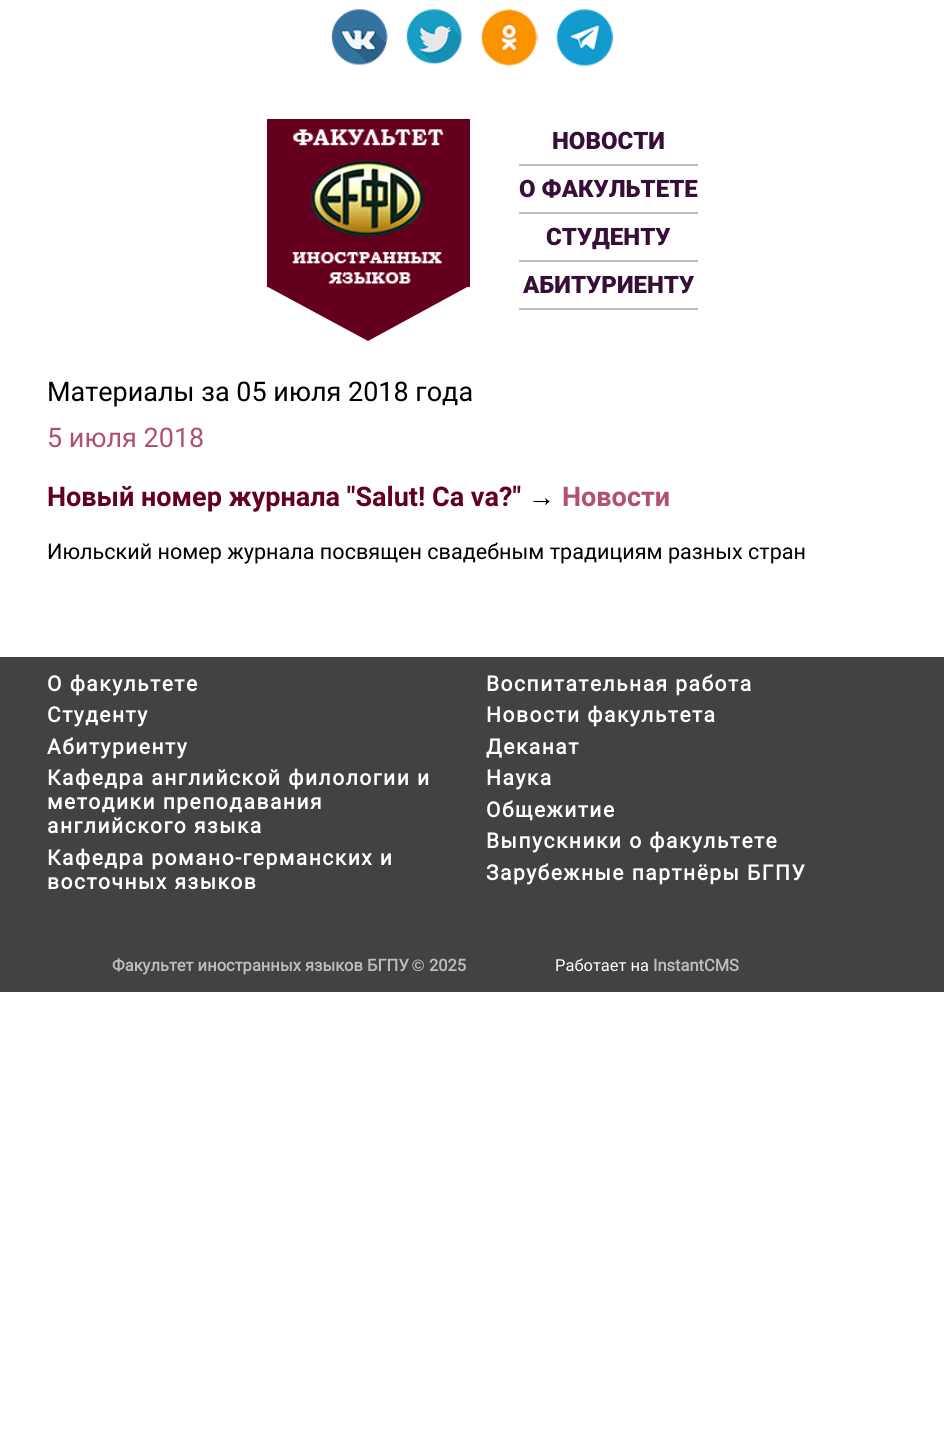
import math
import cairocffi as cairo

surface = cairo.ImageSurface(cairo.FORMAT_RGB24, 944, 1446)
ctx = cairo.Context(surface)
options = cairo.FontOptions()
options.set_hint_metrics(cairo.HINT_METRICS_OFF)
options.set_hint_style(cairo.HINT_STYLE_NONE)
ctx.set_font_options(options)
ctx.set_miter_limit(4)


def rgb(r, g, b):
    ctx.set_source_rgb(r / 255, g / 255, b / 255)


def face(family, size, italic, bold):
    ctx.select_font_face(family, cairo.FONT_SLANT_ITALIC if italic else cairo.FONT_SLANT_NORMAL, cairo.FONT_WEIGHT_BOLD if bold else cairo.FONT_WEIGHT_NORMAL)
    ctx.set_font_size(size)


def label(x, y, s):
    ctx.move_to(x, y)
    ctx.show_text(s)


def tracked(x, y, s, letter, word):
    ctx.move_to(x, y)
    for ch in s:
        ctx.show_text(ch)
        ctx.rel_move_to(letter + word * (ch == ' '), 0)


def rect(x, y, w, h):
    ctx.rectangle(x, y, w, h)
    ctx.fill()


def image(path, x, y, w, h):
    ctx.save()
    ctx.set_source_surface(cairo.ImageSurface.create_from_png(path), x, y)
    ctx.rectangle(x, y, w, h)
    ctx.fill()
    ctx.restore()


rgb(255, 255, 255)
ctx.paint()
image('image0.png', 331, 9, 58, 56)
image('image1.png', 406, 9, 58, 55)
image('image2.png', 481, 9, 58, 57)
image('image3.png', 556, 9, 58, 57)
rgb(100, 0, 30)
rect(267, 119, 203, 168)
image('image4.png', 292, 129, 152, 155)
ctx.new_path()
ctx.move_to(266, 286)
ctx.line_to(469, 286)
ctx.line_to(368, 341)
ctx.close_path()
ctx.fill()
rgb(189, 189, 189)
rect(519, 164, 179, 2)
face('Roboto Black', 24, 0, 0)
rgb(55, 14, 55)
label(552, 149, 'НОВОСТИ')
rgb(189, 189, 189)
rect(519, 212, 179, 2)
rgb(55, 14, 55)
label(519, 197, 'О ФАКУЛЬТЕТЕ')
rgb(189, 189, 189)
rect(519, 260, 179, 2)
rgb(55, 14, 55)
label(546, 245, 'СТУДЕНТУ')
rgb(189, 189, 189)
rect(519, 308, 179, 2)
rgb(55, 14, 55)
label(523, 293, 'АБИТУРИЕНТУ')
face('Roboto', 27, 0, 0)
rgb(0, 0, 0)
label(47, 401, 'Материалы за 05 июля 2018 года')
rgb(178, 80, 109)
label(47, 447, '5 июля 2018')
face('Roboto', 27, 0, 1)
rgb(100, 0, 30)
label(47, 506, 'Новый номер журнала "Salut! Ca va?"')
face('Liberation Sans', 27, 0, 1)
rgb(0, 0, 0)
label(528, 506, '→')
face('Roboto', 27, 0, 1)
rgb(178, 80, 109)
label(562, 506, 'Новости')
face('Roboto', 21.6, 0, 0)
rgb(0, 0, 0)
label(47, 559, 'Июльский номер журнала посвящен свадебным традициям разных стран')
rgb(66, 66, 66)
rect(0, 657, 944, 335)
face('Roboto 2', 21, 0, 1)
rgb(255, 255, 255)
tracked(47, 691, 'О факультете', 1.5, 0)
tracked(47, 722, 'Студенту', 1.5, 0)
tracked(47, 754, 'Абитуриенту', 1.5, 0)
tracked(47, 785, 'Кафедра английской филологии и', 1.5, 0)
tracked(47, 809, 'методики преподавания', 1.5, 0)
tracked(47, 833, 'английского языка', 1.5, 0)
tracked(47, 865, 'Кафедра романо-германских и', 1.5, 0)
tracked(47, 889, 'восточных языков', 1.5, 0)
tracked(486, 691, 'Воспитательная работа', 1.5, 0)
tracked(486, 722, 'Новости факультета', 1.5, 0)
tracked(486, 754, 'Деканат', 1.5, 0)
tracked(486, 785, 'Наука', 1.5, 0)
tracked(486, 817, 'Общежитие', 1.5, 0)
tracked(486, 848, 'Выпускники о факультете', 1.5, 0)
tracked(486, 880, 'Зарубежные партнёры БГПУ', 1.5, 0)
face('Roboto 2', 16.5, 0, 1)
rgb(189, 189, 189)
label(112, 971, 'Факультет иностранных языков БГПУ')
face('Liberation Sans', 16.5, 0, 1)
label(412, 971, '©')
face('Roboto 2', 16.5, 0, 1)
label(429, 971, '2025')
face('Roboto', 16.5, 0, 0)
rgb(255, 255, 255)
label(555, 971, 'Работает на')
face('Roboto 2', 16.5, 0, 1)
rgb(189, 189, 189)
label(653, 971, 'InstantCMS')
surface.write_to_png('render.png')
